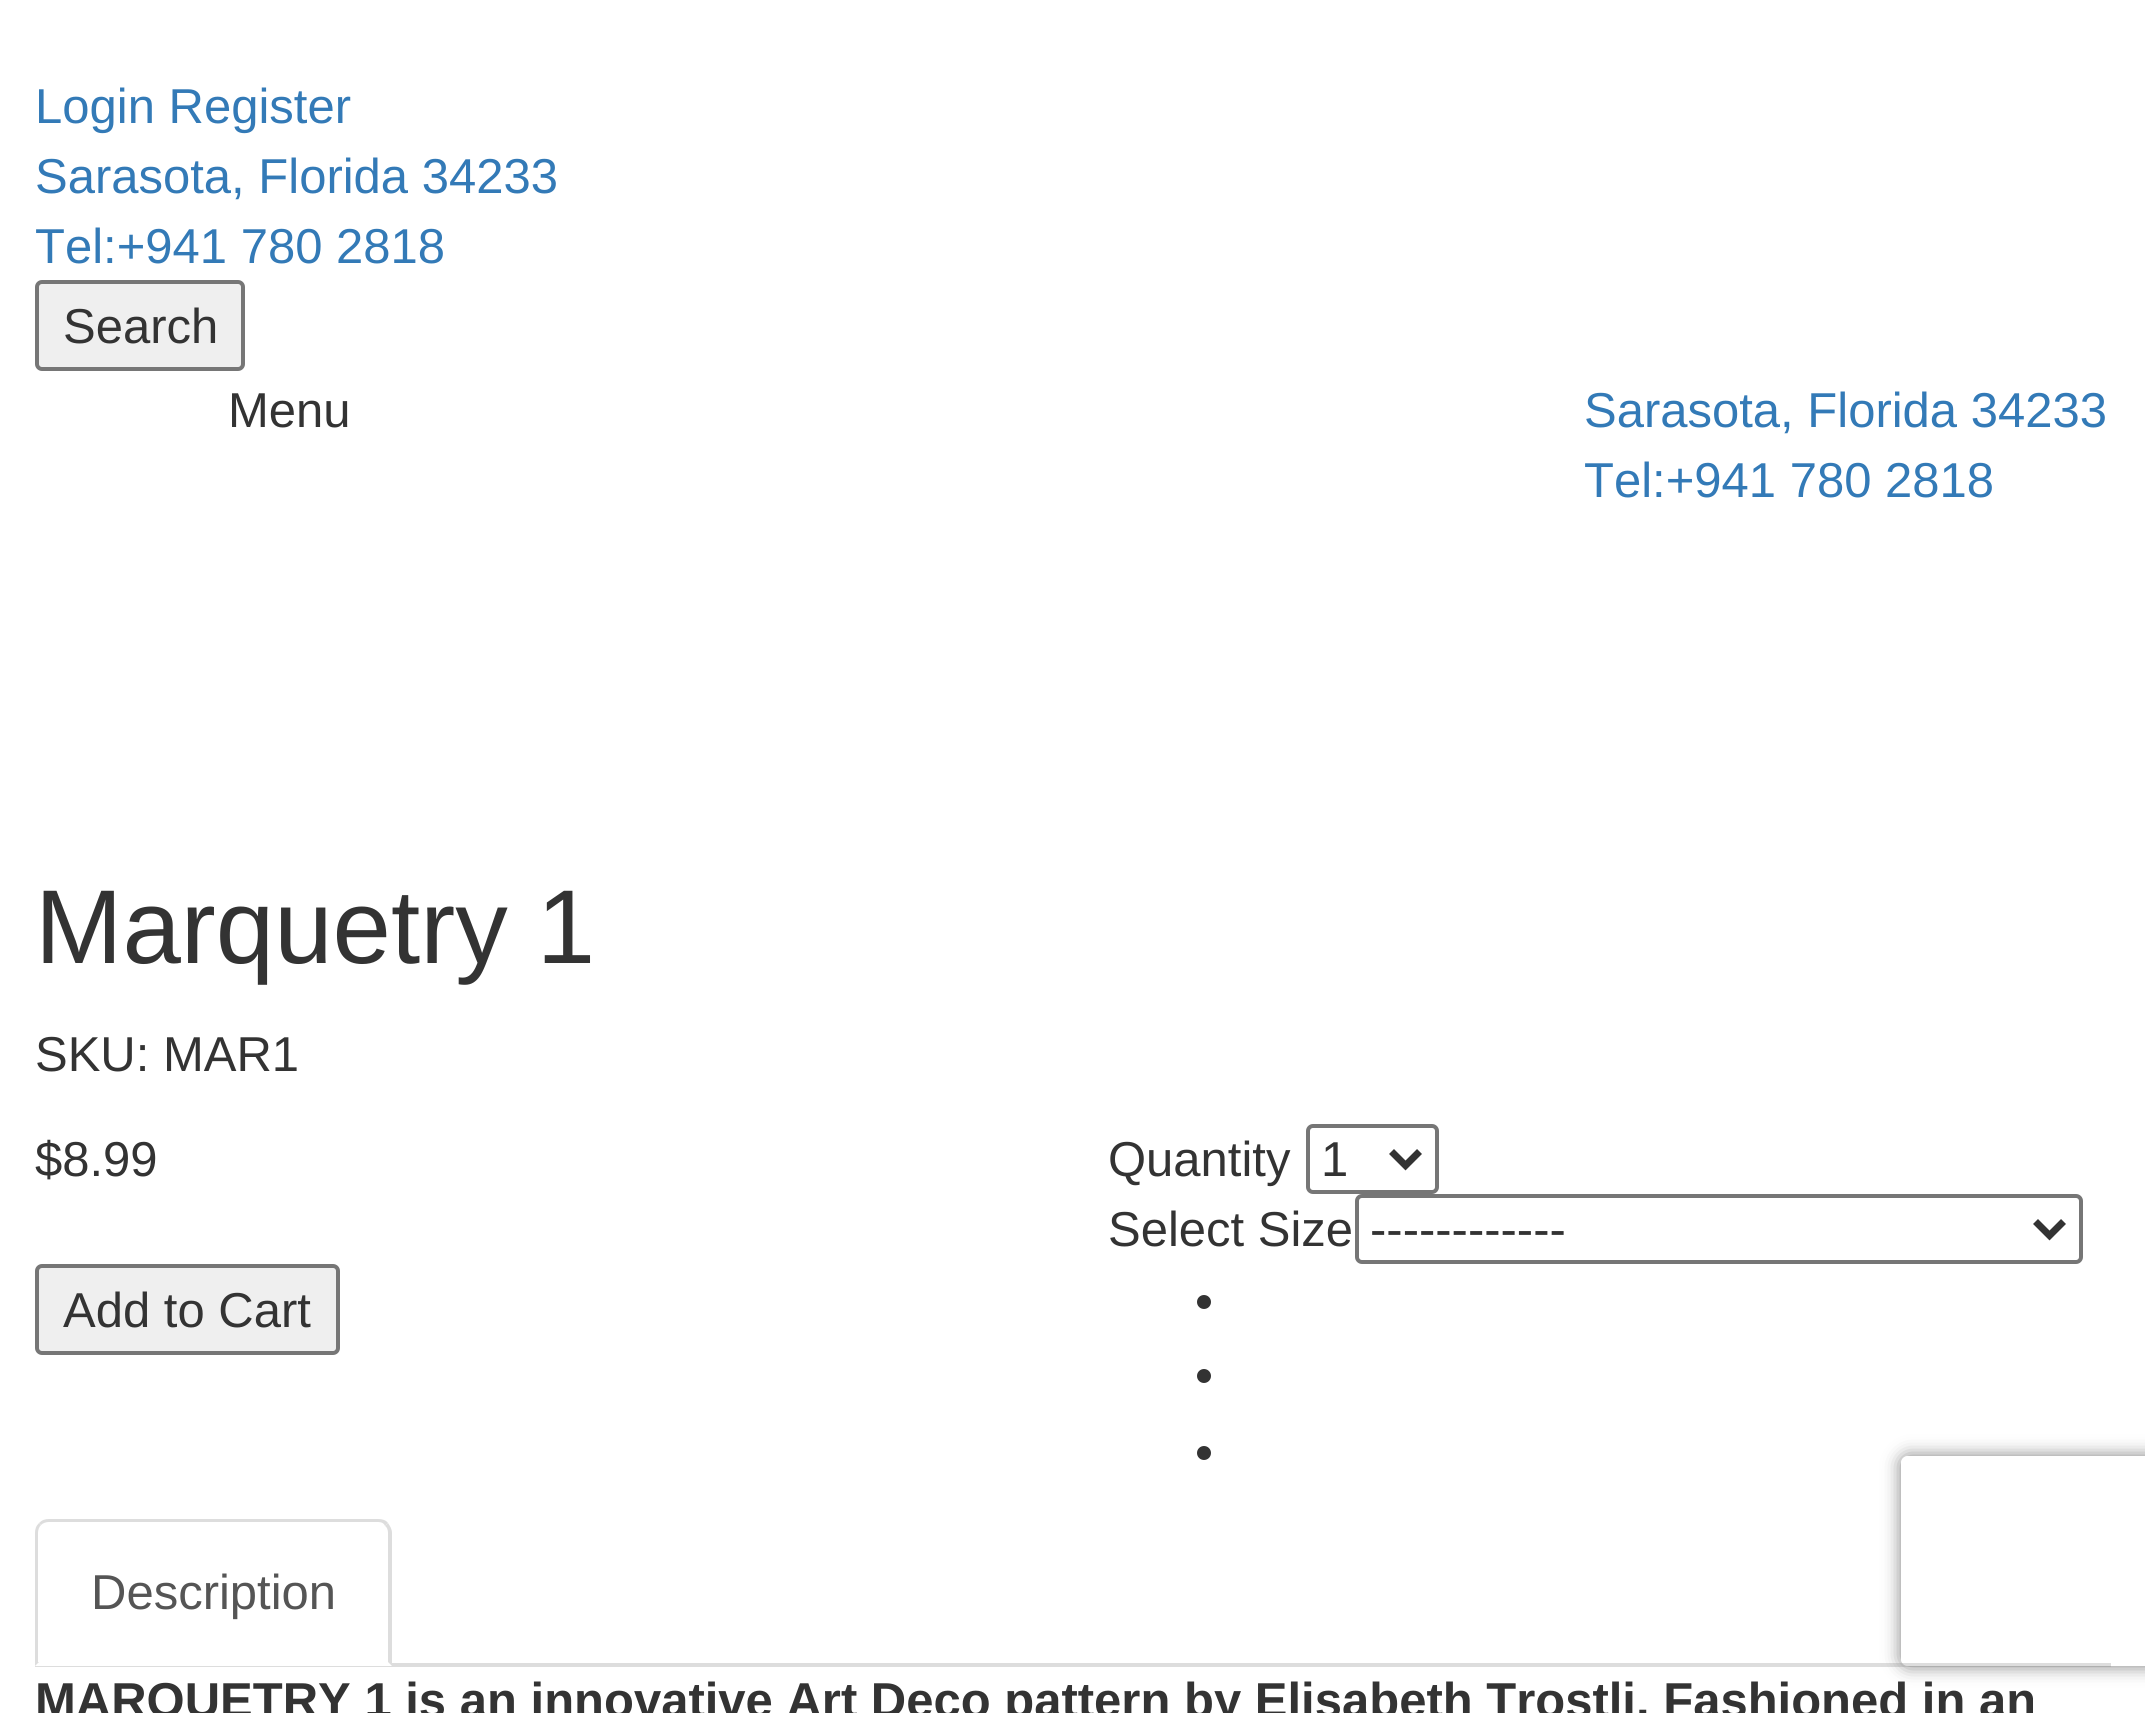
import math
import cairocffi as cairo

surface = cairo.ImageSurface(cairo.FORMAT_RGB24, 2145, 1713)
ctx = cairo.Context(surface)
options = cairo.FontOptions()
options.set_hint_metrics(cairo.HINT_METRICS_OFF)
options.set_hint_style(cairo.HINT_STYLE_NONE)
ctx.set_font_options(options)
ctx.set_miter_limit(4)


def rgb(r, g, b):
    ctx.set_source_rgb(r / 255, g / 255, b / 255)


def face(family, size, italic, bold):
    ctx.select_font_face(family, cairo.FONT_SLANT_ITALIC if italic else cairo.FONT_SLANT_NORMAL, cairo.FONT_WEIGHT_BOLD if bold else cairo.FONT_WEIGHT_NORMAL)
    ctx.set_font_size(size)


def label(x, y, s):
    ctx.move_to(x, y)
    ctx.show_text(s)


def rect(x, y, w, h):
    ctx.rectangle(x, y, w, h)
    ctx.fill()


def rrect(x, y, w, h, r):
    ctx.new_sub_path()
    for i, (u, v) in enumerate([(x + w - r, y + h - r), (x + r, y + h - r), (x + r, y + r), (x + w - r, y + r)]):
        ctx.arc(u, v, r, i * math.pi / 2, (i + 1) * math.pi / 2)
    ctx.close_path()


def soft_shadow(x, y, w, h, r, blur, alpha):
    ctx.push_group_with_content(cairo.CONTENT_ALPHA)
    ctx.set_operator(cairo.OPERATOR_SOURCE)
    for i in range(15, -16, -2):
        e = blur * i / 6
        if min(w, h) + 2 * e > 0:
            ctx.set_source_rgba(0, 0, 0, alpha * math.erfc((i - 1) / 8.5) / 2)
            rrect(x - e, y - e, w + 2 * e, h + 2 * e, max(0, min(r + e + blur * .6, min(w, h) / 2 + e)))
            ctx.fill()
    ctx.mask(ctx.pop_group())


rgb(255, 255, 255)
ctx.paint()
face('Liberation Sans', 49, 0, 0)
rgb(51, 122, 183)
label(35, 123, 'Login Register')
label(35, 193, 'Sarasota, Florida 34233')
label(35, 263, 'Tel:+941 780 2818')
rgb(239, 239, 239)
rrect(37, 282, 206, 87, 5)
ctx.fill_preserve()
rgb(118, 118, 118)
ctx.set_line_width(4)
ctx.stroke()
rgb(51, 51, 51)
label(63, 343, 'Search')
label(228, 427, 'Menu')
rgb(51, 122, 183)
label(1584, 427, 'Sarasota, Florida 34233')
label(1584, 497, 'Tel:+941 780 2818')
face('Liberation Sans', 105, 0, 0)
rgb(51, 51, 51)
label(35, 963, 'Marquetry 1')
face('Liberation Sans', 49, 0, 0)
label(35, 1071, 'SKU: MAR1')
label(35, 1176, '$8.99')
label(1108, 1176, 'Quantity')
rrect(1308, 1126, 129, 66, 5)
rgb(118, 118, 118)
ctx.stroke()
ctx.new_path()
ctx.move_to(1391.5, 1151.5)
ctx.line_to(1405.5, 1165.5)
ctx.line_to(1419.5, 1151.5)
rgb(51, 51, 51)
ctx.set_line_width(7)
ctx.stroke()
label(1321, 1176, '1')
label(1108, 1246, 'Select Size')
rrect(1357, 1196, 724, 66, 5)
rgb(118, 118, 118)
ctx.set_line_width(4)
ctx.stroke()
ctx.new_path()
ctx.move_to(2035.5, 1221.5)
ctx.line_to(2049.5, 1235.5)
ctx.line_to(2063.5, 1221.5)
rgb(51, 51, 51)
ctx.set_line_width(7)
ctx.stroke()
label(1370, 1246, '------------')
rgb(239, 239, 239)
rrect(37, 1266, 301, 87, 5)
ctx.fill_preserve()
rgb(118, 118, 118)
ctx.set_line_width(4)
ctx.stroke()
rgb(51, 51, 51)
label(63, 1327, 'Add to Cart')
ctx.new_path()
ctx.arc(1204, 1302, 7, 0, 2 * math.pi)
ctx.fill()
ctx.arc(1204, 1376, 7, 0, 2 * math.pi)
ctx.fill()
ctx.arc(1204, 1453, 7, 0, 2 * math.pi)
ctx.fill()
rgb(221, 221, 221)
rect(35, 1663, 2076, 4)
rgb(255, 255, 255)
ctx.new_path()
ctx.move_to(49, 1519)
ctx.line_to(378, 1519)
ctx.curve_to(385.5, 1519, 392, 1525.5, 392, 1533)
ctx.line_to(392, 1666)
ctx.line_to(35, 1666)
ctx.line_to(35, 1533)
ctx.curve_to(35, 1525.5, 41.5, 1519, 49, 1519)
ctx.close_path()
ctx.fill()
rgb(221, 221, 221)
ctx.new_path()
ctx.move_to(49, 1519)
ctx.curve_to(45, 1519, 42, 1520, 39, 1523)
ctx.line_to(41, 1525)
ctx.curve_to(43, 1523, 46, 1522, 49, 1522)
ctx.line_to(378, 1522)
ctx.curve_to(381, 1522, 384, 1523, 385, 1526)
ctx.line_to(388, 1523)
ctx.curve_to(386, 1520, 382, 1519, 378, 1519)
ctx.close_path()
ctx.fill()
ctx.new_path()
ctx.move_to(392, 1666)
ctx.line_to(392, 1533)
ctx.curve_to(392, 1529, 390, 1526, 388, 1523)
ctx.line_to(385, 1526)
ctx.curve_to(387, 1527, 388, 1530, 388, 1533)
ctx.line_to(388, 1662)
ctx.close_path()
ctx.fill()
ctx.new_path()
ctx.move_to(35, 1666)
ctx.line_to(39, 1662)
ctx.line_to(38, 1662)
ctx.line_to(38, 1533)
ctx.curve_to(38, 1530, 39, 1527, 41, 1525)
ctx.line_to(39, 1523)
ctx.curve_to(36, 1526, 35, 1529, 35, 1533)
ctx.close_path()
ctx.fill()
rgb(85, 85, 85)
label(91, 1609, 'Description')
face('Liberation Sans', 49, 0, 1)
rgb(51, 51, 51)
label(35, 1717, 'MARQUETRY 1 is an innovative Art Deco pattern by Elisabeth Trostli. Fashioned in an')
ctx.save()
ctx.set_fill_rule(cairo.FILL_RULE_EVEN_ODD)
ctx.new_path()
ctx.move_to(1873, 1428)
ctx.line_to(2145, 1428)
ctx.line_to(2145, 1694)
ctx.line_to(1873, 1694)
ctx.close_path()
ctx.move_to(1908, 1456)
ctx.line_to(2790, 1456)
ctx.curve_to(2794, 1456, 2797, 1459, 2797, 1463)
ctx.line_to(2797, 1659)
ctx.curve_to(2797, 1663, 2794, 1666, 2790, 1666)
ctx.line_to(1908, 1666)
ctx.curve_to(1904, 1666, 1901, 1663, 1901, 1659)
ctx.line_to(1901, 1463)
ctx.curve_to(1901, 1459, 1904, 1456, 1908, 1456)
ctx.close_path()
ctx.clip()
rgb(128, 128, 128)
soft_shadow(1901, 1456, 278, 210, 7, 9, 1)
ctx.restore()
surface.write_to_png('render.png')
